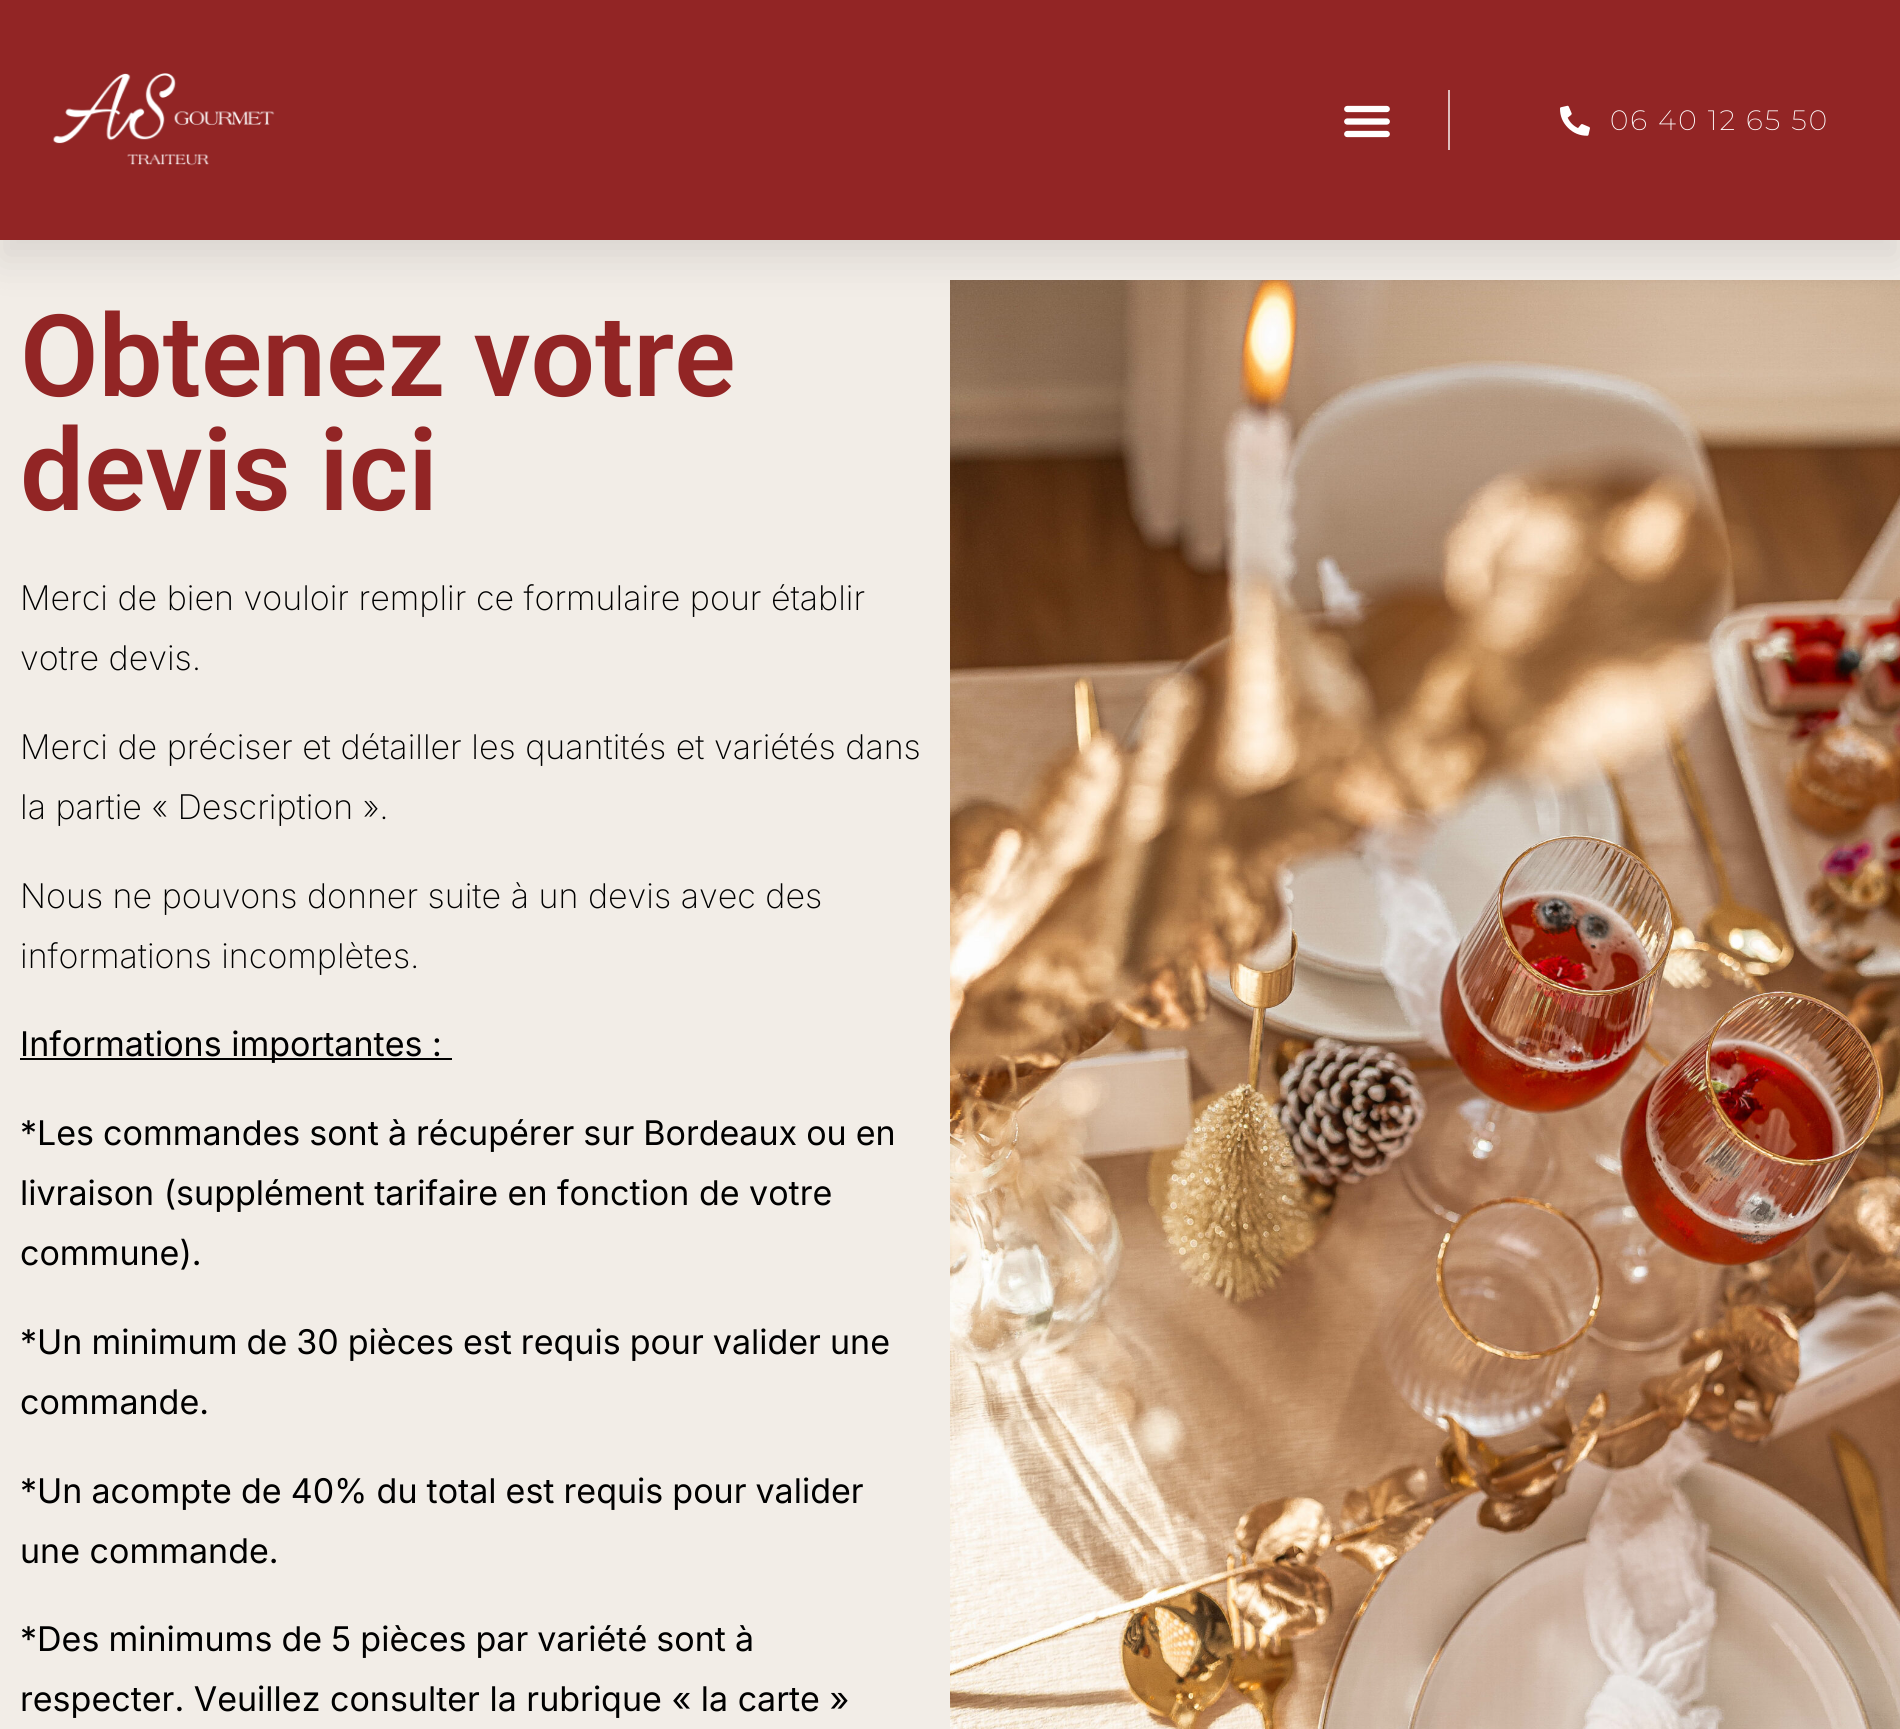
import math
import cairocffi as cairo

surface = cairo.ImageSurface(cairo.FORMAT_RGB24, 1900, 1729)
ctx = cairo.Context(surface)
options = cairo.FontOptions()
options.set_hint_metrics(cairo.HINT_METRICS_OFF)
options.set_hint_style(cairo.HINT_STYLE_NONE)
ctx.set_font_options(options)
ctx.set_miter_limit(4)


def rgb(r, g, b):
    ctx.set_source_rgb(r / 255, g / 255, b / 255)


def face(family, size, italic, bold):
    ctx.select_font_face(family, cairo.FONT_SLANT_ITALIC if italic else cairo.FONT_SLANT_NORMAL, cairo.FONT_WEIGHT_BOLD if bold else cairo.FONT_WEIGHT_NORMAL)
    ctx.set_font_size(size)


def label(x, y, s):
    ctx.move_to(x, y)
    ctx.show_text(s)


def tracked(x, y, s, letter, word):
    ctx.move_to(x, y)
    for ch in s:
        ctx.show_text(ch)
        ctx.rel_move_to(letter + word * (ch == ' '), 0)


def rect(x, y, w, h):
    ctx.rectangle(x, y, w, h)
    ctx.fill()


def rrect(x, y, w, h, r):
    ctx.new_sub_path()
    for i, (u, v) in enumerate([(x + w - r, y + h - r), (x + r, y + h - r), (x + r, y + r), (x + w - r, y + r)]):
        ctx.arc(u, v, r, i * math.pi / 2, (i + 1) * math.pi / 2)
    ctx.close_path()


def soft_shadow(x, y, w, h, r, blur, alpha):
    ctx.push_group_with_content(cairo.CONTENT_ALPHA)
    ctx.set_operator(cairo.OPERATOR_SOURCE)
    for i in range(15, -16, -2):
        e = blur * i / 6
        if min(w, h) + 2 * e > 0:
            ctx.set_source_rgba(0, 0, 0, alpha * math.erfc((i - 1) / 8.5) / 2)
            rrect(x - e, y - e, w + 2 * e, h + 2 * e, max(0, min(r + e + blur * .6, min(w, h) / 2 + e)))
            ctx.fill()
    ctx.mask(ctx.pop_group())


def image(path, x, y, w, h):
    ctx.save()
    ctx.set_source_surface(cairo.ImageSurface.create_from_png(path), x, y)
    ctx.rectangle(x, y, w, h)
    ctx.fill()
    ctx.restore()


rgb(242, 237, 231)
ctx.paint()
image('image3.png', 950, 280, 950, 1449)
rgb(0, 0, 0)
soft_shadow(0, 20, 1900, 240, 0, 20, 0.1)
rgb(146, 37, 37)
rect(0, 0, 1900, 240)
image('image0.png', 53, 73, 222, 93)
image('image1.png', 1344, 105, 46, 33)
rgb(222, 190, 190)
rect(1448, 90, 2, 60)
image('image2.png', 1560, 105, 30, 31)
face('Montserrat ExtraLight', 28, 0, 0)
rgb(255, 255, 255)
tracked(1610, 130, '06 40 12 65 50', 2, 0)
face('Roboto SemiBold', 114, 0, 0)
rgb(146, 37, 37)
label(20, 396, 'Obtenez votre')
label(20, 510, 'devis ici')
face('Inter ExtraLight', 34, 0, 0)
rgb(0, 0, 0)
label(20, 610, 'Merci de bien vouloir remplir ce formulaire pour établir')
label(20, 670, 'votre devis.')
label(20, 759, 'Merci de préciser et détailler les quantités et variétés dans')
label(20, 819, 'la partie « Description ».')
label(20, 908, 'Nous ne pouvons donner suite à un devis avec des')
label(20, 968, 'informations incomplètes.')
rect(20, 1058, 432, 2)
face('Inter', 34, 0, 0)
label(20, 1056, 'Informations importantes :')
tracked(20, 1145, '*Les commandes sont à récupérer sur Bordeaux ou en', 0, -0.5)
label(20, 1205, 'livraison (supplément tarifaire en fonction de votre')
label(20, 1265, 'commune).')
tracked(20, 1354, '*Un minimum de 30 pièces est requis pour valider une', 0, -0.5)
label(20, 1414, 'commande.')
tracked(20, 1503, '*Un acompte de 40% du total est requis pour valider', 0, -0.5)
label(20, 1563, 'une commande.')
tracked(20, 1651, '*Des minimums de 5 pièces par variété sont à', 0, -0.5)
label(20, 1711, 'respecter. Veuillez consulter la rubrique « la carte »')
surface.write_to_png('render.png')
